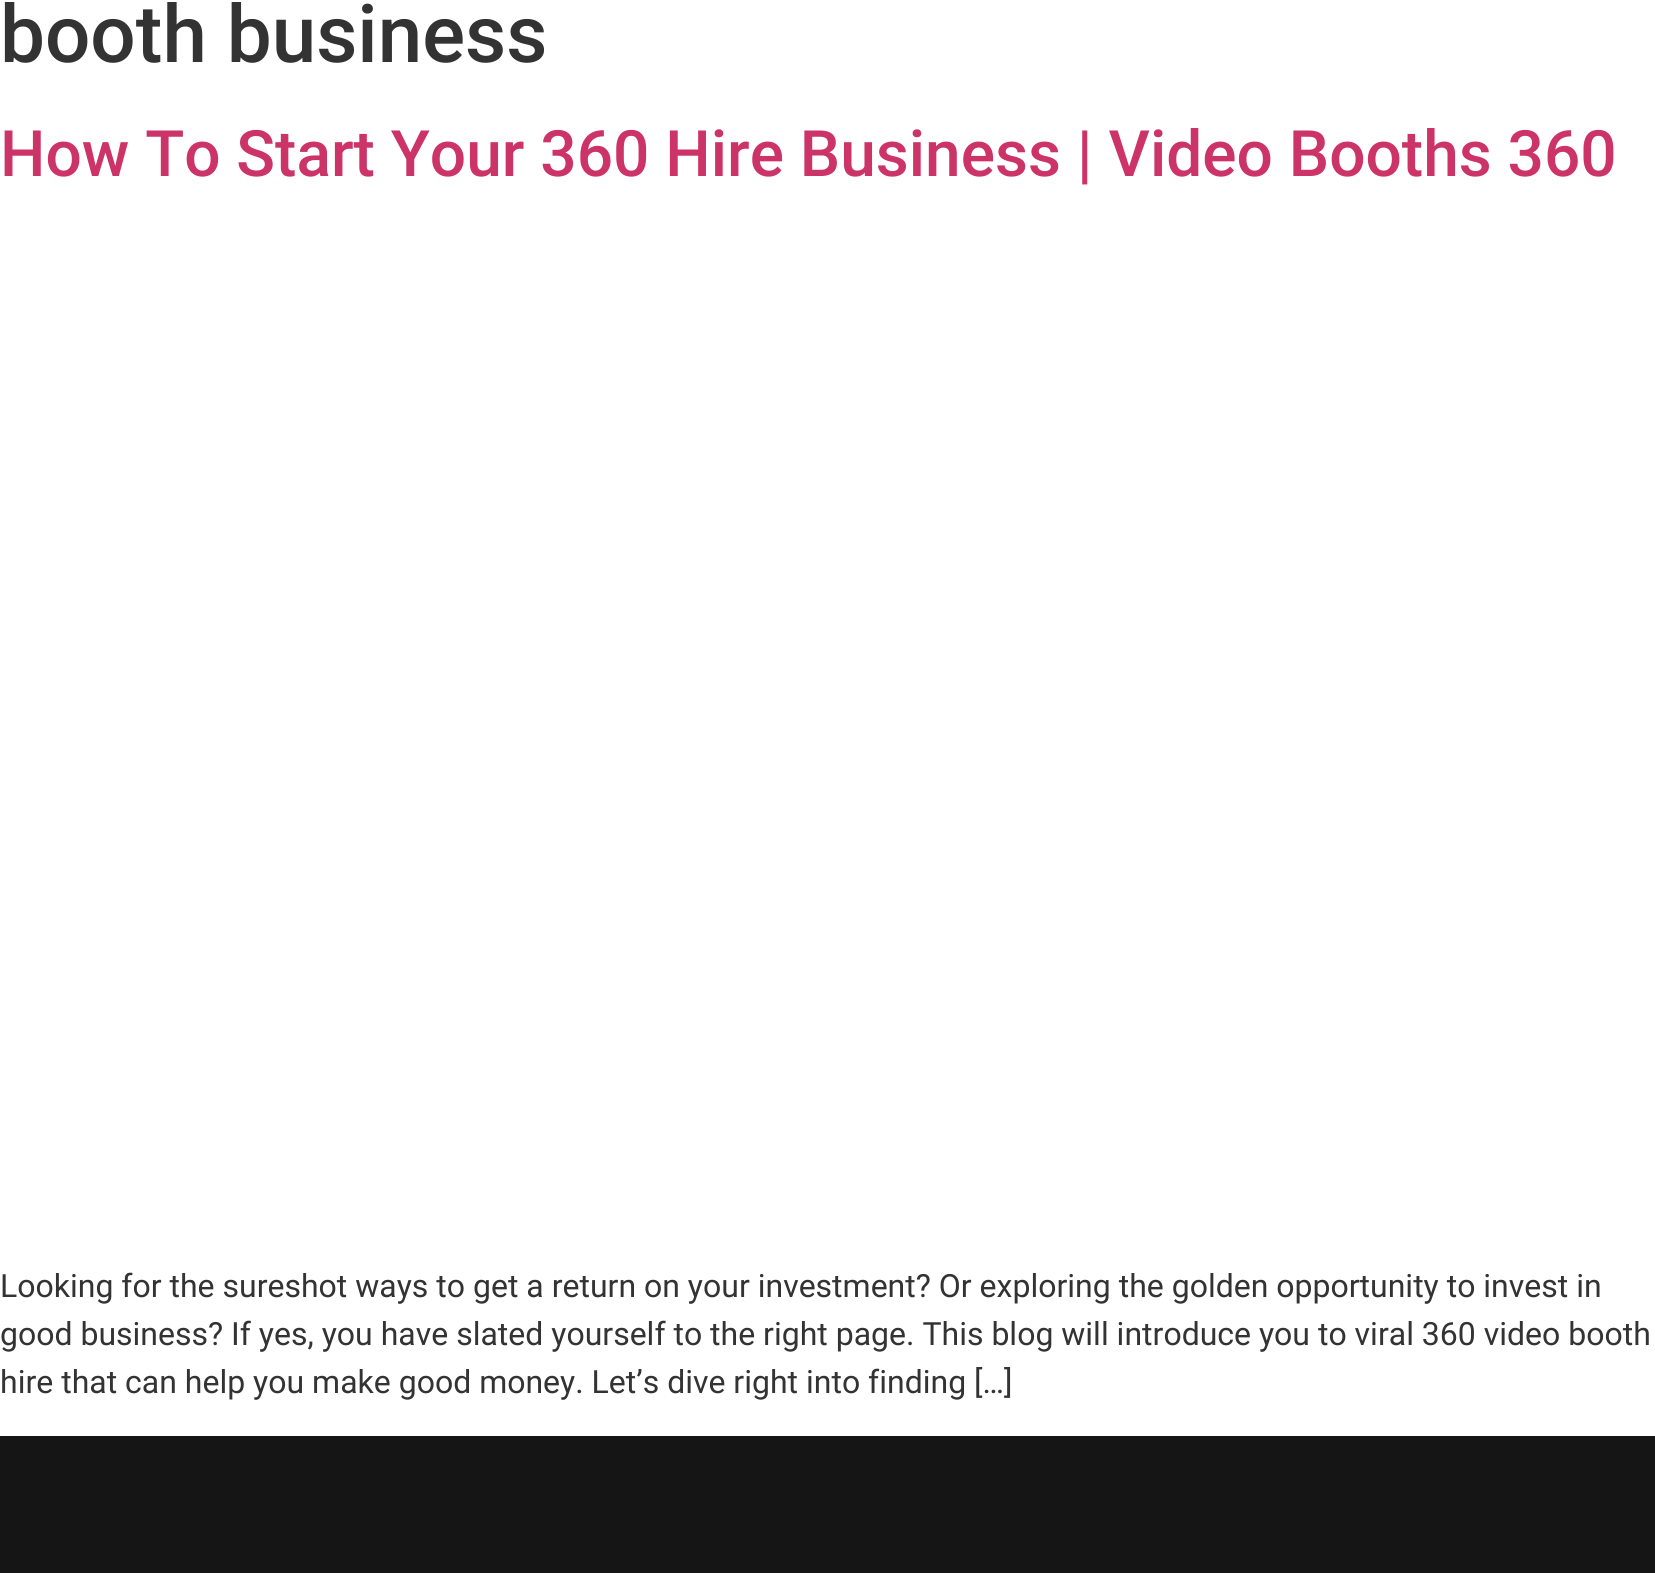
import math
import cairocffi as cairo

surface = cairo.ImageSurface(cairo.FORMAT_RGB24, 1655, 1573)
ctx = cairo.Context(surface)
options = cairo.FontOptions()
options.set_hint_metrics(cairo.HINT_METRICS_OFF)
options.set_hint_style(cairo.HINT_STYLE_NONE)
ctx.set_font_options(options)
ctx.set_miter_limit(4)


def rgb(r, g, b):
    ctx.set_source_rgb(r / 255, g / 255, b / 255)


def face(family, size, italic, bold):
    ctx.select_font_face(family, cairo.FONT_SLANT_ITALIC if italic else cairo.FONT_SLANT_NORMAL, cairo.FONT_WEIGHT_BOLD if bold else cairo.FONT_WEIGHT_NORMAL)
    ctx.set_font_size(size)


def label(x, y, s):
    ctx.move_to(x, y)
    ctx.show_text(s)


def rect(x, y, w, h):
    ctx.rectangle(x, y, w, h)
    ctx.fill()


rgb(255, 255, 255)
ctx.paint()
face('Roboto Medium', 80, 0, 0)
rgb(51, 51, 51)
label(0, 62, 'booth business')
face('Roboto Medium', 64, 0, 0)
rgb(204, 51, 102)
label(0, 176, 'How To Start Your 360 Hire Business | Video Booths 360')
face('Roboto', 32, 0, 0)
rgb(51, 51, 51)
label(0, 1297, 'Looking for the sureshot ways to get a return on your investment? Or exploring the golden opportunity to invest in')
label(0, 1345, 'good business? If yes, you have slated yourself to the right page. This blog will introduce you to viral 360 video booth')
label(0, 1393, 'hire that can help you make good money. Let’s dive right into finding […]')
rgb(21, 21, 21)
rect(0, 1436, 1655, 137)
surface.write_to_png('render.png')
